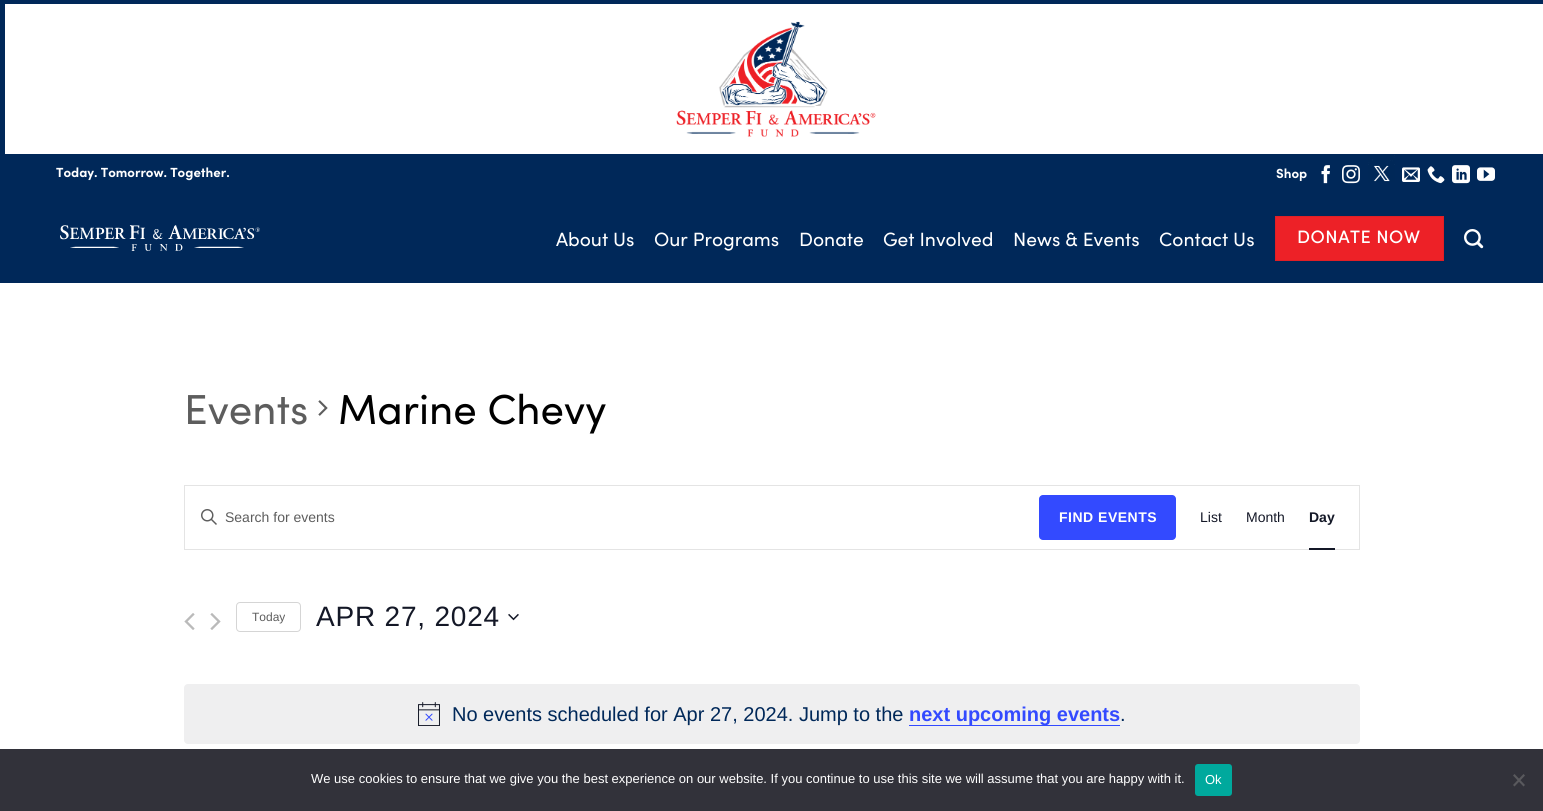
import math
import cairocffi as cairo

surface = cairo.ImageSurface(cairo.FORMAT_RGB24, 1543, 811)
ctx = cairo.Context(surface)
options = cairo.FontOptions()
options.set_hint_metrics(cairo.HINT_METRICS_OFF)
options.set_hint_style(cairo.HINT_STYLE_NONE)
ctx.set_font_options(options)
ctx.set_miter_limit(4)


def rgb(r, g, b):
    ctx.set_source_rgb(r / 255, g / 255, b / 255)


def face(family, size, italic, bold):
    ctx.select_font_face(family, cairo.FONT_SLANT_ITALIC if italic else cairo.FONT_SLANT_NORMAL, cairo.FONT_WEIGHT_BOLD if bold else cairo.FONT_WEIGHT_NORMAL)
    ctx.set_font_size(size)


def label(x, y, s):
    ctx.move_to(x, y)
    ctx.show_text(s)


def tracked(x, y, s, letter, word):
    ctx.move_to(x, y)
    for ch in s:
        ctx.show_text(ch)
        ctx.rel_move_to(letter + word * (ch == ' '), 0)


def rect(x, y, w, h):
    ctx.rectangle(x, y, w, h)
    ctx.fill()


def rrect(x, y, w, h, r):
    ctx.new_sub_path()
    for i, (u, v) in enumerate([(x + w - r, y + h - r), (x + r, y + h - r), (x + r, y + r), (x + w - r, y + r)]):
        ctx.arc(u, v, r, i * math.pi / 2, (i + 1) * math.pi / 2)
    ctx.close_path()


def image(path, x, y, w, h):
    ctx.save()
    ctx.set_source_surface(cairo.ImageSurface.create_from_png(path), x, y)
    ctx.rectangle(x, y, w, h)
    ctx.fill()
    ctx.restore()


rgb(255, 255, 255)
ctx.paint()
rgb(0, 40, 89)
rect(0, 0, 1543, 283)
rgb(255, 255, 255)
rect(5, 4, 1538, 150)
image('image0.png', 676, 21, 200, 116)
face('Sofia', 13.25, 0, 1)
label(56, 177, 'Today. Tomorrow. Together.')
label(1276, 178, 'Shop')
image('image1.png', 1321, 165, 9, 19)
image('image2.png', 1342, 165, 18, 19)
image('image3.png', 1368, 155, 27, 27)
image('image4.png', 1402, 167, 18, 15)
image('image5.png', 1427, 166, 18, 18)
image('image6.png', 1452, 165, 18, 19)
image('image7.png', 1477, 167, 18, 14)
image('image8.png', 60, 225, 200, 26)
face('Sofia', 19.25, 0, 0)
label(556, 246, 'About Us')
label(654, 246, 'Our Programs')
label(799, 246, 'Donate')
label(883, 246, 'Get Involved')
label(1013, 246, 'News & Events')
label(1159, 246, 'Contact Us')
rgb(237, 33, 39)
ctx.rectangle(1275.5, 216.5, 168, 44)
ctx.fill_preserve()
rgb(225, 31, 37)
ctx.set_line_width(1)
ctx.stroke()
face('Sofia Medium', 18, 0, 0)
rgb(255, 255, 255)
tracked(1297, 243, 'DONATE NOW', 0.5, 0)
image('image9.png', 1464, 229, 20, 20)
face('Sofia', 42, 0, 0)
rgb(93, 93, 93)
label(184, 424, 'Events')
image('image10.png', 318, 400, 10, 16)
rgb(0, 0, 0)
label(338, 424, 'Marine Chevy')
ctx.rectangle(184.5, 485.5, 1175, 64)
rgb(228, 228, 228)
ctx.stroke()
image('image11.png', 201, 509, 16, 16)
face('Liberation Sans', 14, 0, 0)
rgb(93, 93, 93)
label(225, 522, 'Search for events')
rgb(51, 74, 255)
rrect(1039, 495, 137, 45, 4)
ctx.fill()
face('Liberation Sans', 14, 0, 1)
rgb(255, 255, 255)
tracked(1059, 522, 'FIND EVENTS', 0.5, 0)
face('Liberation Sans', 14, 0, 0)
rgb(20, 24, 39)
label(1200, 522, 'List')
label(1246, 522, 'Month')
face('Liberation Sans', 14, 0, 1)
label(1309, 522, 'Day')
rect(1309, 548, 26, 2)
image('image12.png', 184, 613, 11, 17)
image('image13.png', 210, 613, 11, 17)
rrect(236.5, 602.5, 64, 29, 3.5)
rgb(213, 213, 213)
ctx.stroke()
face('Liberation Sans', 12, 0, 0)
rgb(93, 93, 93)
label(252, 621, 'Today')
face('Liberation Sans', 28, 0, 0)
rgb(20, 24, 39)
tracked(316, 626, 'APR 27, 2024', 0.8, 0)
image('image14.png', 508, 613, 11, 8)
rgb(239, 239, 240)
rrect(184, 684, 1176, 60, 4)
ctx.fill()
image('image15.png', 418, 702, 22, 24)
face('Liberation Sans', 20, 0, 0)
rgb(0, 40, 89)
label(452, 721, 'No events scheduled for Apr 27, 2024. Jump to the')
rgb(51, 74, 255)
rect(909, 725, 211, 1)
face('Liberation Sans', 20, 0, 1)
label(909, 721, 'next upcoming events')
face('Liberation Sans', 20, 0, 0)
rgb(0, 40, 89)
label(1120, 721, '.')
rgb(50, 50, 58)
rect(0, 749, 1543, 62)
face('Liberation Sans', 13, 0, 0)
rgb(255, 255, 255)
label(311, 783, 'We use cookies to ensure that we give you the best experience on our website. If you continue to use this site we will assume that you are happy with it.')
rgb(0, 169, 157)
rrect(1195, 764, 37, 32, 3)
ctx.fill()
rgb(255, 255, 255)
label(1205, 784, 'Ok')
rgb(89, 89, 93)
ctx.new_path()
ctx.move_to(1523.5, 774)
ctx.line_to(1525, 775.5)
ctx.line_to(1514.5, 786.5)
ctx.line_to(1513, 785)
ctx.close_path()
ctx.fill()
ctx.new_path()
ctx.move_to(1513, 775.5)
ctx.line_to(1514.5, 774)
ctx.line_to(1525, 785)
ctx.line_to(1523.5, 786.5)
ctx.close_path()
ctx.fill()
surface.write_to_png('render.png')
